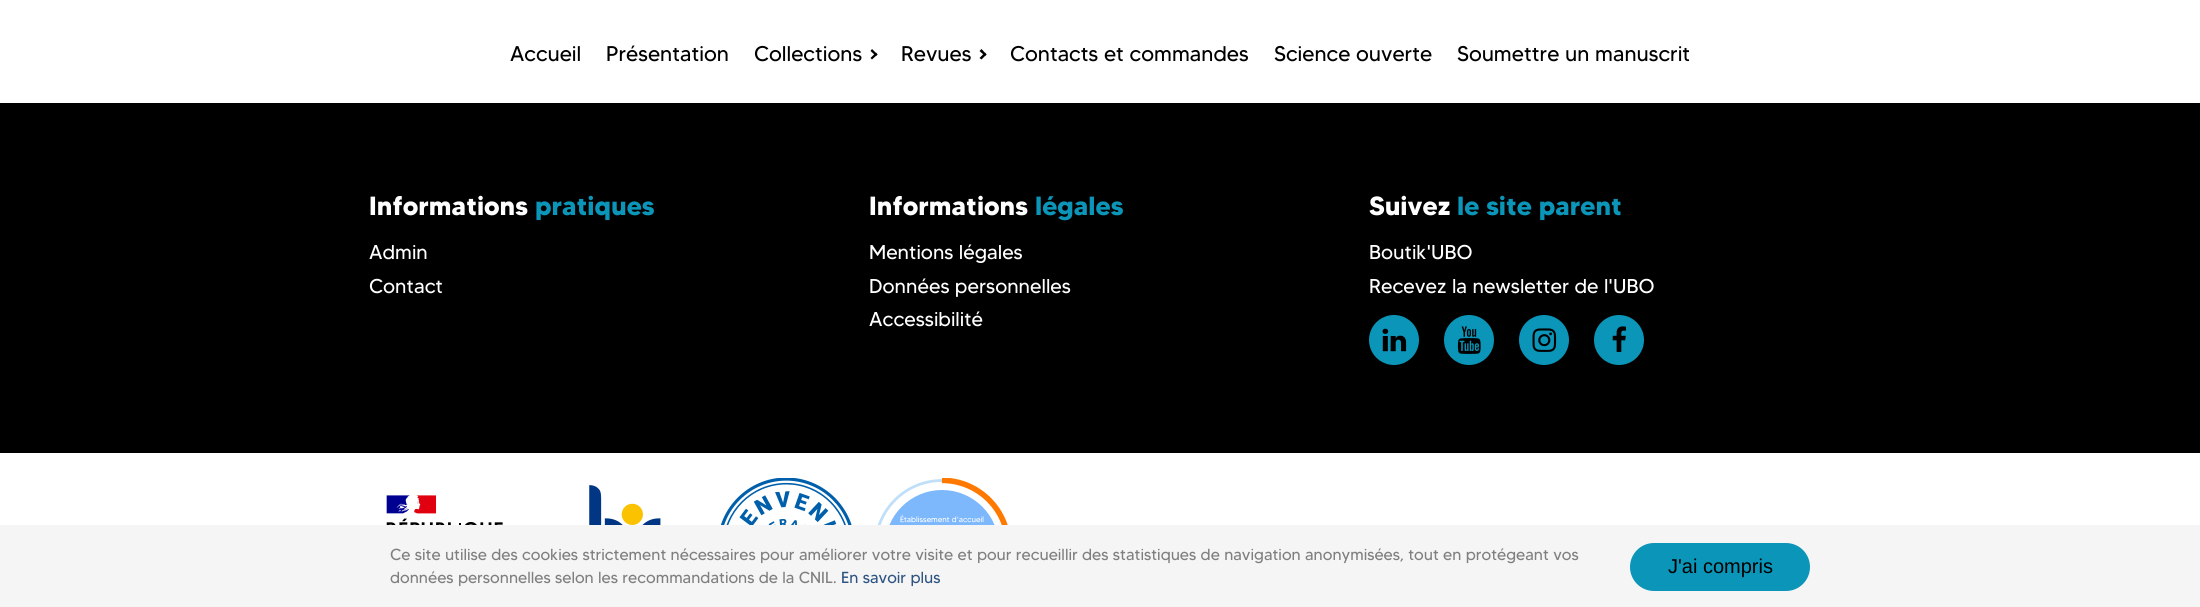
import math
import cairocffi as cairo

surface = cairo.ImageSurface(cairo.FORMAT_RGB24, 2200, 607)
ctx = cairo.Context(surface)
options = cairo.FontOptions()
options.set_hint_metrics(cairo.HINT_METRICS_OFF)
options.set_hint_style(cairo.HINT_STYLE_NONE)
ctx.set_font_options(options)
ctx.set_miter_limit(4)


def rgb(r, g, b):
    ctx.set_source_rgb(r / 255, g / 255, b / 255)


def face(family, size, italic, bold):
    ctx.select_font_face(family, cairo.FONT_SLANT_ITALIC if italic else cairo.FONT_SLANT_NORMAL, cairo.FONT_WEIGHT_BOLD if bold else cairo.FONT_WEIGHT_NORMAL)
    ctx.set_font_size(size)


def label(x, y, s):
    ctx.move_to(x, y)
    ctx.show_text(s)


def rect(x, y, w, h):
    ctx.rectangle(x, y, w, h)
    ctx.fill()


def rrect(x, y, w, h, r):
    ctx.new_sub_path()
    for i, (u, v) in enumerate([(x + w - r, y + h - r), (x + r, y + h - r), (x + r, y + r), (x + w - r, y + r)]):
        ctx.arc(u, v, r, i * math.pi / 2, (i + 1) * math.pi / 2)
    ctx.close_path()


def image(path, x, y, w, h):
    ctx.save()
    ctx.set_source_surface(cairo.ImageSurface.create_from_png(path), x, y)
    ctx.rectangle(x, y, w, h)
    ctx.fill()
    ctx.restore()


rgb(255, 255, 255)
ctx.paint()
face('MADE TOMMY', 21.25, 0, 0)
rgb(0, 0, 0)
label(510, 61, 'Accueil')
label(606, 61, 'Présentation')
label(754, 61, 'Collections')
ctx.new_path()
ctx.move_to(872, 49)
ctx.line_to(877.5, 54.5)
ctx.line_to(876, 56)
ctx.line_to(870.5, 51)
ctx.close_path()
ctx.fill()
ctx.new_path()
ctx.move_to(876, 52.5)
ctx.line_to(877.5, 54.5)
ctx.line_to(872, 59.5)
ctx.line_to(870.5, 58)
ctx.close_path()
ctx.fill()
label(901, 61, 'Revues')
ctx.new_path()
ctx.move_to(981.5, 49)
ctx.line_to(986.5, 54.5)
ctx.line_to(985, 56)
ctx.line_to(979.5, 51)
ctx.close_path()
ctx.fill()
ctx.new_path()
ctx.move_to(985, 52.5)
ctx.line_to(986.5, 54.5)
ctx.line_to(981.5, 59.5)
ctx.line_to(979.5, 58)
ctx.close_path()
ctx.fill()
label(1010, 61, 'Contacts et commandes')
label(1274, 61, 'Science ouverte')
label(1457, 61, 'Soumettre un manuscrit')
rect(0, 103, 2200, 350)
face('MADE TOMMY', 26.25, 0, 1)
rgb(255, 255, 255)
label(369, 215, 'Informations')
rgb(11, 149, 184)
label(535, 215, 'pratiques')
face('MADE TOMMY', 20, 0, 0)
rgb(255, 255, 255)
label(369, 259, 'Admin')
label(369, 293, 'Contact')
face('MADE TOMMY', 26.25, 0, 1)
label(869, 215, 'Informations')
rgb(11, 149, 184)
label(1035, 215, 'légales')
face('MADE TOMMY', 20, 0, 0)
rgb(255, 255, 255)
label(869, 259, 'Mentions légales')
label(869, 293, 'Données personnelles')
label(869, 326, 'Accessibilité')
face('MADE TOMMY', 26.25, 0, 1)
label(1369, 215, 'Suivez')
rgb(11, 149, 184)
label(1457, 215, 'le site parent')
face('MADE TOMMY', 20, 0, 0)
rgb(255, 255, 255)
label(1369, 259, 'Boutik\'UBO')
label(1369, 293, 'Recevez la newsletter de l\'UBO')
rgb(11, 149, 184)
ctx.new_path()
ctx.arc(1394, 340, 25, 0, 2 * math.pi)
ctx.fill()
image('image0.png', 1382, 328, 25, 24)
ctx.arc(1469, 340, 25, 0, 2 * math.pi)
ctx.fill()
image('image1.png', 1457, 326, 24, 28)
ctx.arc(1544, 340, 25, 0, 2 * math.pi)
ctx.fill()
image('image2.png', 1532, 328, 25, 24)
ctx.arc(1619, 340, 25, 0, 2 * math.pi)
ctx.fill()
image('image3.png', 1612, 326, 14, 26)
image('image4.png', 386, 495, 117, 30)
image('image5.png', 589, 485, 72, 40)
image('image6.png', 720, 478, 132, 47)
image('image7.png', 877, 478, 131, 47)
rgb(245, 245, 245)
rect(0, 525, 2200, 82)
face('MADE TOMMY', 16, 0, 0)
rgb(127, 127, 127)
label(390, 560, 'Ce site utilise des cookies strictement nécessaires pour améliorer votre visite et pour recueillir des statistiques de navigation anonymisées, tout en protégeant vos')
label(390, 583, 'données personnelles selon les recommandations de la CNIL.')
rgb(46, 84, 129)
label(841, 583, 'En savoir plus')
rgb(11, 149, 184)
rrect(1630, 543, 180, 48, 24)
ctx.fill()
face('Liberation Sans', 20, 0, 0)
rgb(0, 0, 0)
label(1668, 573, 'J\'ai compris')
surface.write_to_png('render.png')
